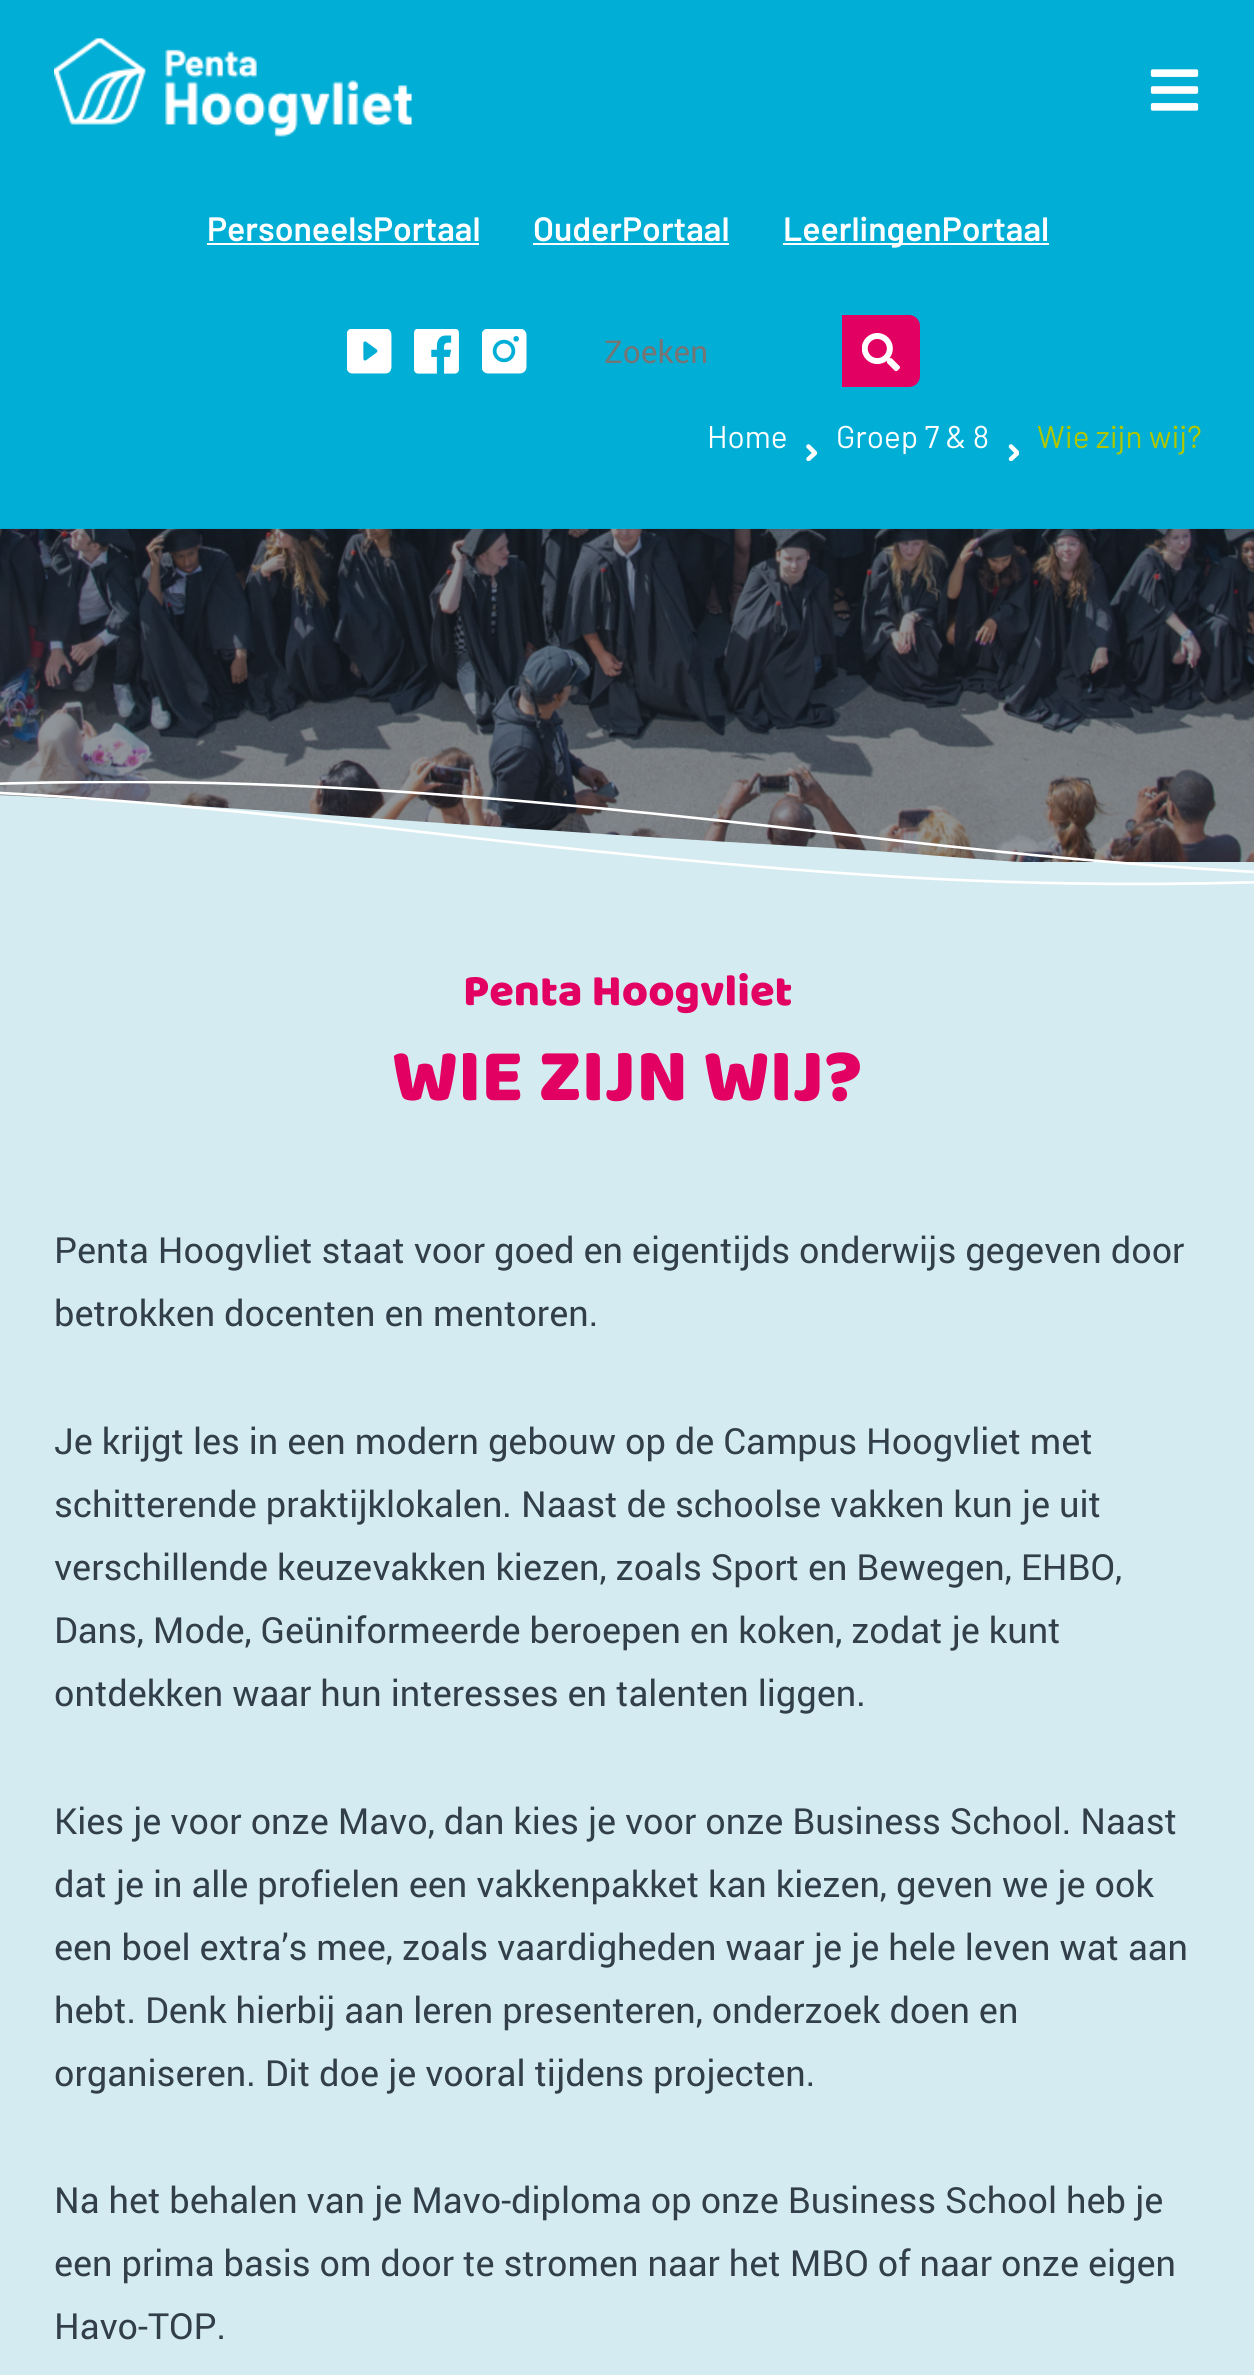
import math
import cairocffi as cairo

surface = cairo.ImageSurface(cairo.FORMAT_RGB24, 1254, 2375)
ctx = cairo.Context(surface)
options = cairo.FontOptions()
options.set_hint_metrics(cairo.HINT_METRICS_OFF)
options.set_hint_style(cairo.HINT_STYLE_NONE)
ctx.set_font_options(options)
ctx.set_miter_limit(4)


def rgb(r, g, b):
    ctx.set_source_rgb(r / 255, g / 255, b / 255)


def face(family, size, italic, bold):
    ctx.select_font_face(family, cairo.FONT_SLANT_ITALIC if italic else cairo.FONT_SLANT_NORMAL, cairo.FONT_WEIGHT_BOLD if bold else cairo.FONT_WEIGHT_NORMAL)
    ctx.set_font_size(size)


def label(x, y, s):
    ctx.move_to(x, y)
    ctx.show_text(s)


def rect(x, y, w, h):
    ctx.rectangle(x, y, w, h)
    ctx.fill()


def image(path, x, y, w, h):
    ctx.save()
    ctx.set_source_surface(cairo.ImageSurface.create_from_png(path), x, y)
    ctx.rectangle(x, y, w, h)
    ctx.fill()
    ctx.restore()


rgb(0, 174, 214)
ctx.paint()
image('image0.png', 54, 38, 358, 99)
image('image1.png', 1150, 69, 49, 42)
face('Barlow SemiBold', 33.75, 0, 0)
rgb(255, 255, 255)
label(207, 241, 'PersoneelsPortaal')
rect(207, 243, 272, 2)
label(533, 241, 'OuderPortaal')
rect(533, 243, 196, 2)
rect(783, 243, 266, 2)
label(783, 241, 'LeerlingenPortaal')
image('image2.png', 347, 329, 45, 45)
image('image3.png', 414, 329, 45, 45)
image('image4.png', 482, 329, 45, 45)
face('Roboto', 31.5, 0, 0)
rgb(117, 117, 117)
label(604, 363, 'Zoeken')
rgb(226, 0, 98)
ctx.new_path()
ctx.move_to(842, 315)
ctx.line_to(909, 315)
ctx.curve_to(915, 315, 920, 320, 920, 326)
ctx.line_to(920, 376)
ctx.curve_to(920, 382, 915, 387, 909, 387)
ctx.line_to(842, 387)
ctx.close_path()
ctx.fill()
image('image5.png', 862, 333, 38, 38)
face('Barlow', 31.5, 0, 0)
rgb(255, 255, 255)
label(707, 448, 'Home')
ctx.save()
ctx.rectangle(806, 419, 11, 42)
ctx.clip()
ctx.new_path()
ctx.move_to(808.5, 446.5)
ctx.line_to(815, 453)
ctx.line_to(808.5, 459)
ctx.set_line_width(4.5)
ctx.set_line_cap(cairo.LINE_CAP_ROUND)
ctx.set_line_join(cairo.LINE_JOIN_ROUND)
ctx.stroke()
ctx.restore()
label(836, 448, 'Groep 7 & 8')
ctx.save()
ctx.rectangle(1008, 419, 11, 42)
ctx.clip()
ctx.new_path()
ctx.move_to(1011, 446.5)
ctx.line_to(1017.5, 453)
ctx.line_to(1011, 459)
ctx.set_line_width(4.5)
ctx.set_line_cap(cairo.LINE_CAP_ROUND)
ctx.set_line_join(cairo.LINE_JOIN_ROUND)
ctx.stroke()
ctx.restore()
rgb(176, 199, 0)
label(1037, 448, 'Wie zijn wij?')
image('image6.png', 0, 528, 1254, 334)
rgb(212, 236, 241)
rect(0, 862, 1254, 1513)
image('image7.png', 0, 781, 1254, 105)
face('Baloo', 45, 0, 0)
rgb(226, 0, 98)
label(463, 1005, 'Penta Hoogvliet')
face('Baloo', 76.5, 0, 0)
label(392, 1100, 'WIE ZIJN WIJ?')
face('Roboto', 36, 0, 0)
rgb(50, 63, 75)
label(54, 1263, 'Penta Hoogvliet staat voor goed en eigentijds onderwijs gegeven door')
label(54, 1326, 'betrokken docenten en mentoren.')
label(54, 1454, 'Je krijgt les in een modern gebouw op de Campus Hoogvliet met')
label(54, 1517, 'schitterende praktijklokalen. Naast de schoolse vakken kun je uit')
label(54, 1580, 'verschillende keuzevakken kiezen, zoals Sport en Bewegen, EHBO,')
label(54, 1643, 'Dans, Mode, Geüniformeerde beroepen en koken, zodat je kunt')
label(54, 1706, 'ontdekken waar hun interesses en talenten liggen.')
label(54, 1834, 'Kies je voor onze Mavo, dan kies je voor onze Business School. Naast')
label(54, 1897, 'dat je in alle profielen een vakkenpakket kan kiezen, geven we je ook')
label(54, 1960, 'een boel extra’s mee, zoals vaardigheden waar je je hele leven wat aan')
label(54, 2023, 'hebt. Denk hierbij aan leren presenteren, onderzoek doen en')
label(54, 2086, 'organiseren. Dit doe je vooral tijdens projecten.')
label(54, 2213, 'Na het behalen van je Mavo-diploma op onze Business School heb je')
label(54, 2276, 'een prima basis om door te stromen naar het MBO of naar onze eigen')
label(54, 2339, 'Havo-TOP.')
surface.write_to_png('render.png')
